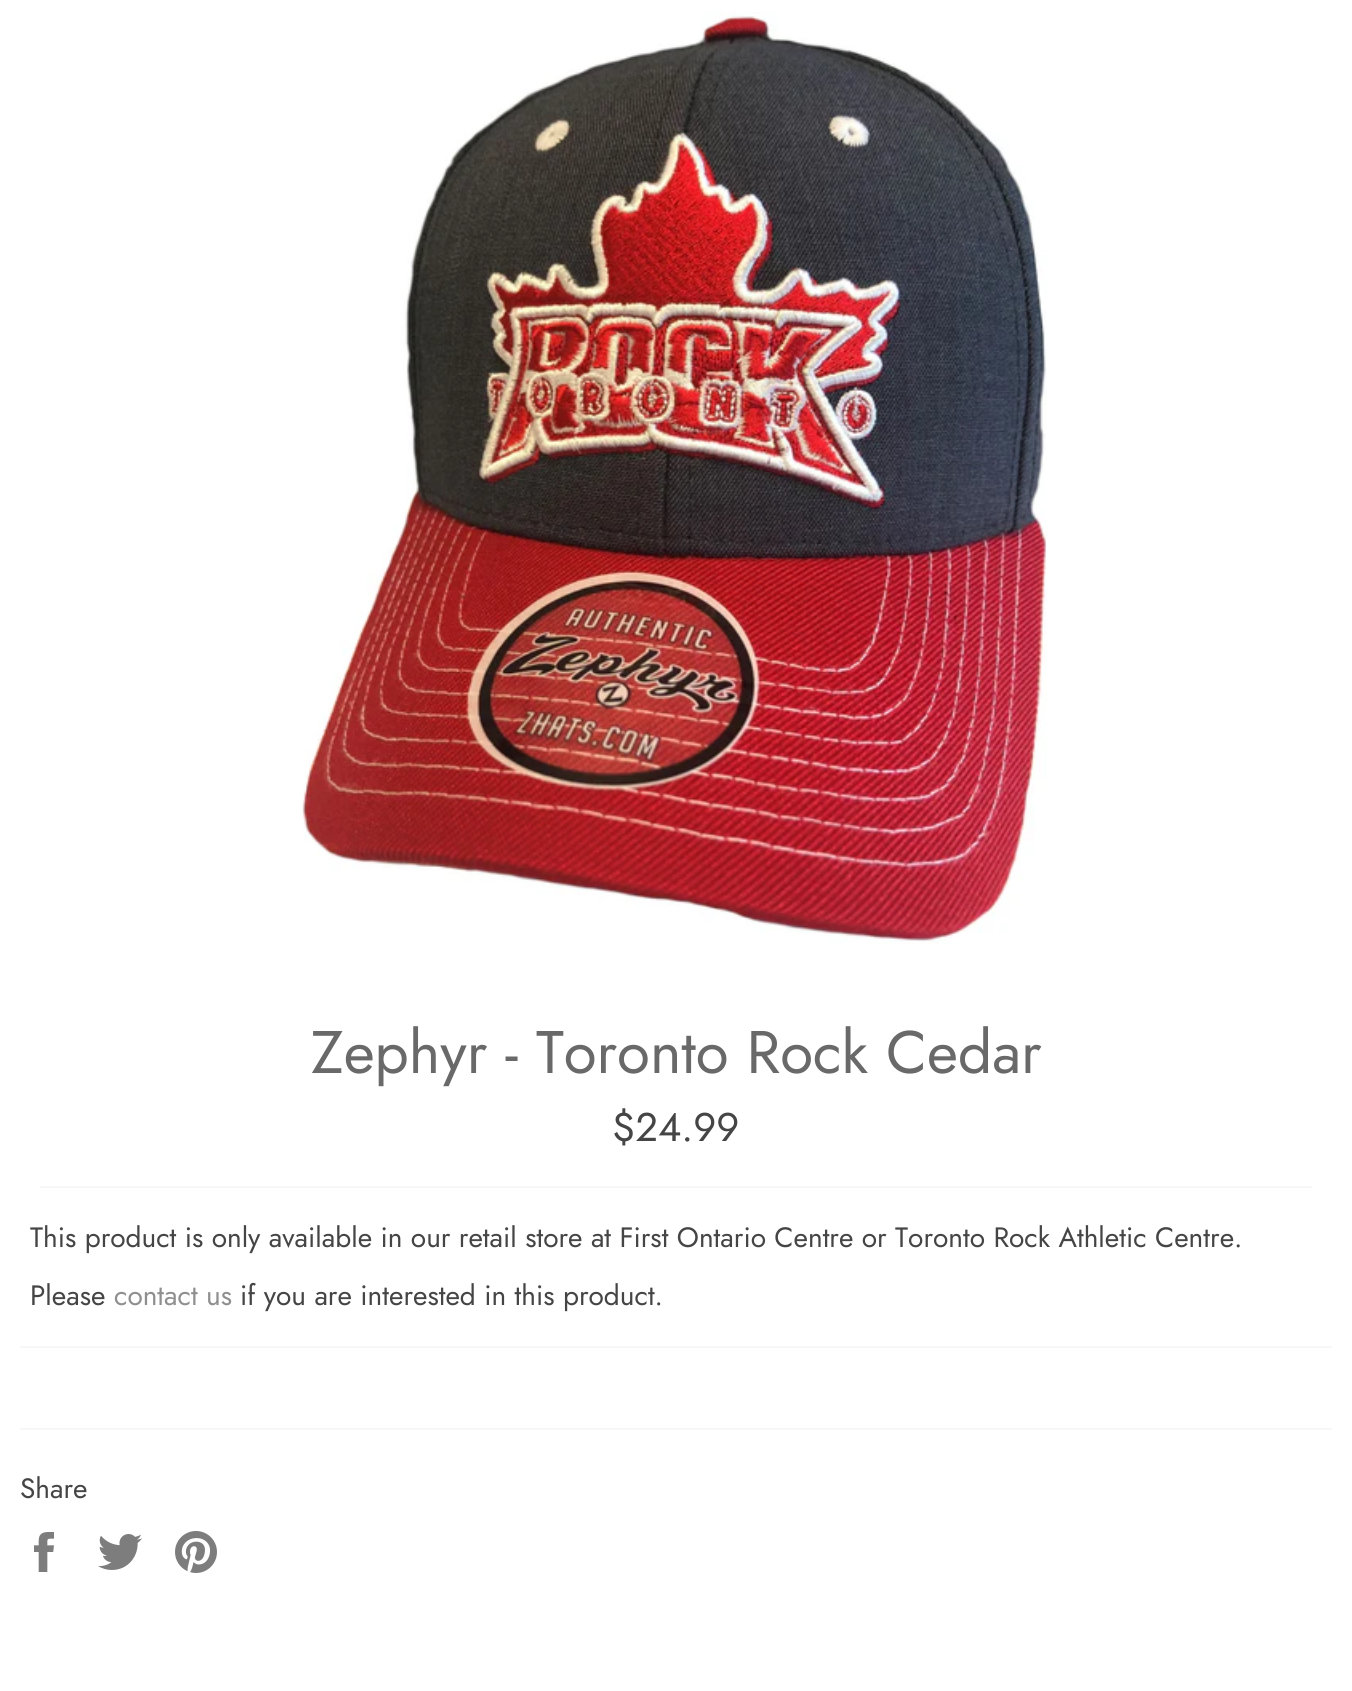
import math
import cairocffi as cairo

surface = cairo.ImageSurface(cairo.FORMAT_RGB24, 1352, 1691)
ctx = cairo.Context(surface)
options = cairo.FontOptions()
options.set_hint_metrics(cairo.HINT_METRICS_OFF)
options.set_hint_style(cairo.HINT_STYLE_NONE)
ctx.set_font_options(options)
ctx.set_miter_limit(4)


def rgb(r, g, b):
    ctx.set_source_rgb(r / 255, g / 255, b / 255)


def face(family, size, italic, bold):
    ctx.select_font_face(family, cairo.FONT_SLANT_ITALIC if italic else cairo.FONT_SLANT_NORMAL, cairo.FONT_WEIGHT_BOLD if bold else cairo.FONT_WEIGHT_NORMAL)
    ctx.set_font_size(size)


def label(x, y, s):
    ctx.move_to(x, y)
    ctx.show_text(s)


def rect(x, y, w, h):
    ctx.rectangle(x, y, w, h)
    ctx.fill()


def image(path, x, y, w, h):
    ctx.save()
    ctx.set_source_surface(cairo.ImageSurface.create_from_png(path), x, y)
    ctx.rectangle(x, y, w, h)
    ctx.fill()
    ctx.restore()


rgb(255, 255, 255)
ctx.paint()
image('image0.png', 302, 12, 745, 932)
face('Jost', 60, 0, 0)
rgb(105, 105, 105)
label(311, 1073, 'Zephyr - Toronto Rock Cedar')
face('Jost', 40, 0, 0)
rgb(69, 69, 69)
label(612, 1141, '$24.99')
rgb(247, 247, 247)
rect(40, 1186, 1272, 2)
face('Jost', 28, 0, 0)
rgb(69, 69, 69)
label(30, 1247, 'This product is only available in our retail store at First Ontario Centre or Toronto Rock Athletic Centre.')
label(30, 1305, 'Please')
rgb(143, 143, 143)
label(114, 1305, 'contact us')
rgb(69, 69, 69)
label(240, 1305, 'if you are interested in this product.')
rgb(247, 247, 247)
rect(20, 1346, 1312, 2)
rect(20, 1428, 1312, 2)
rgb(69, 69, 69)
label(20, 1498, 'Share')
image('image1.png', 34, 1532, 20, 40)
image('image2.png', 98, 1534, 44, 36)
image('image3.png', 175, 1531, 42, 42)
surface.write_to_png('render.png')
